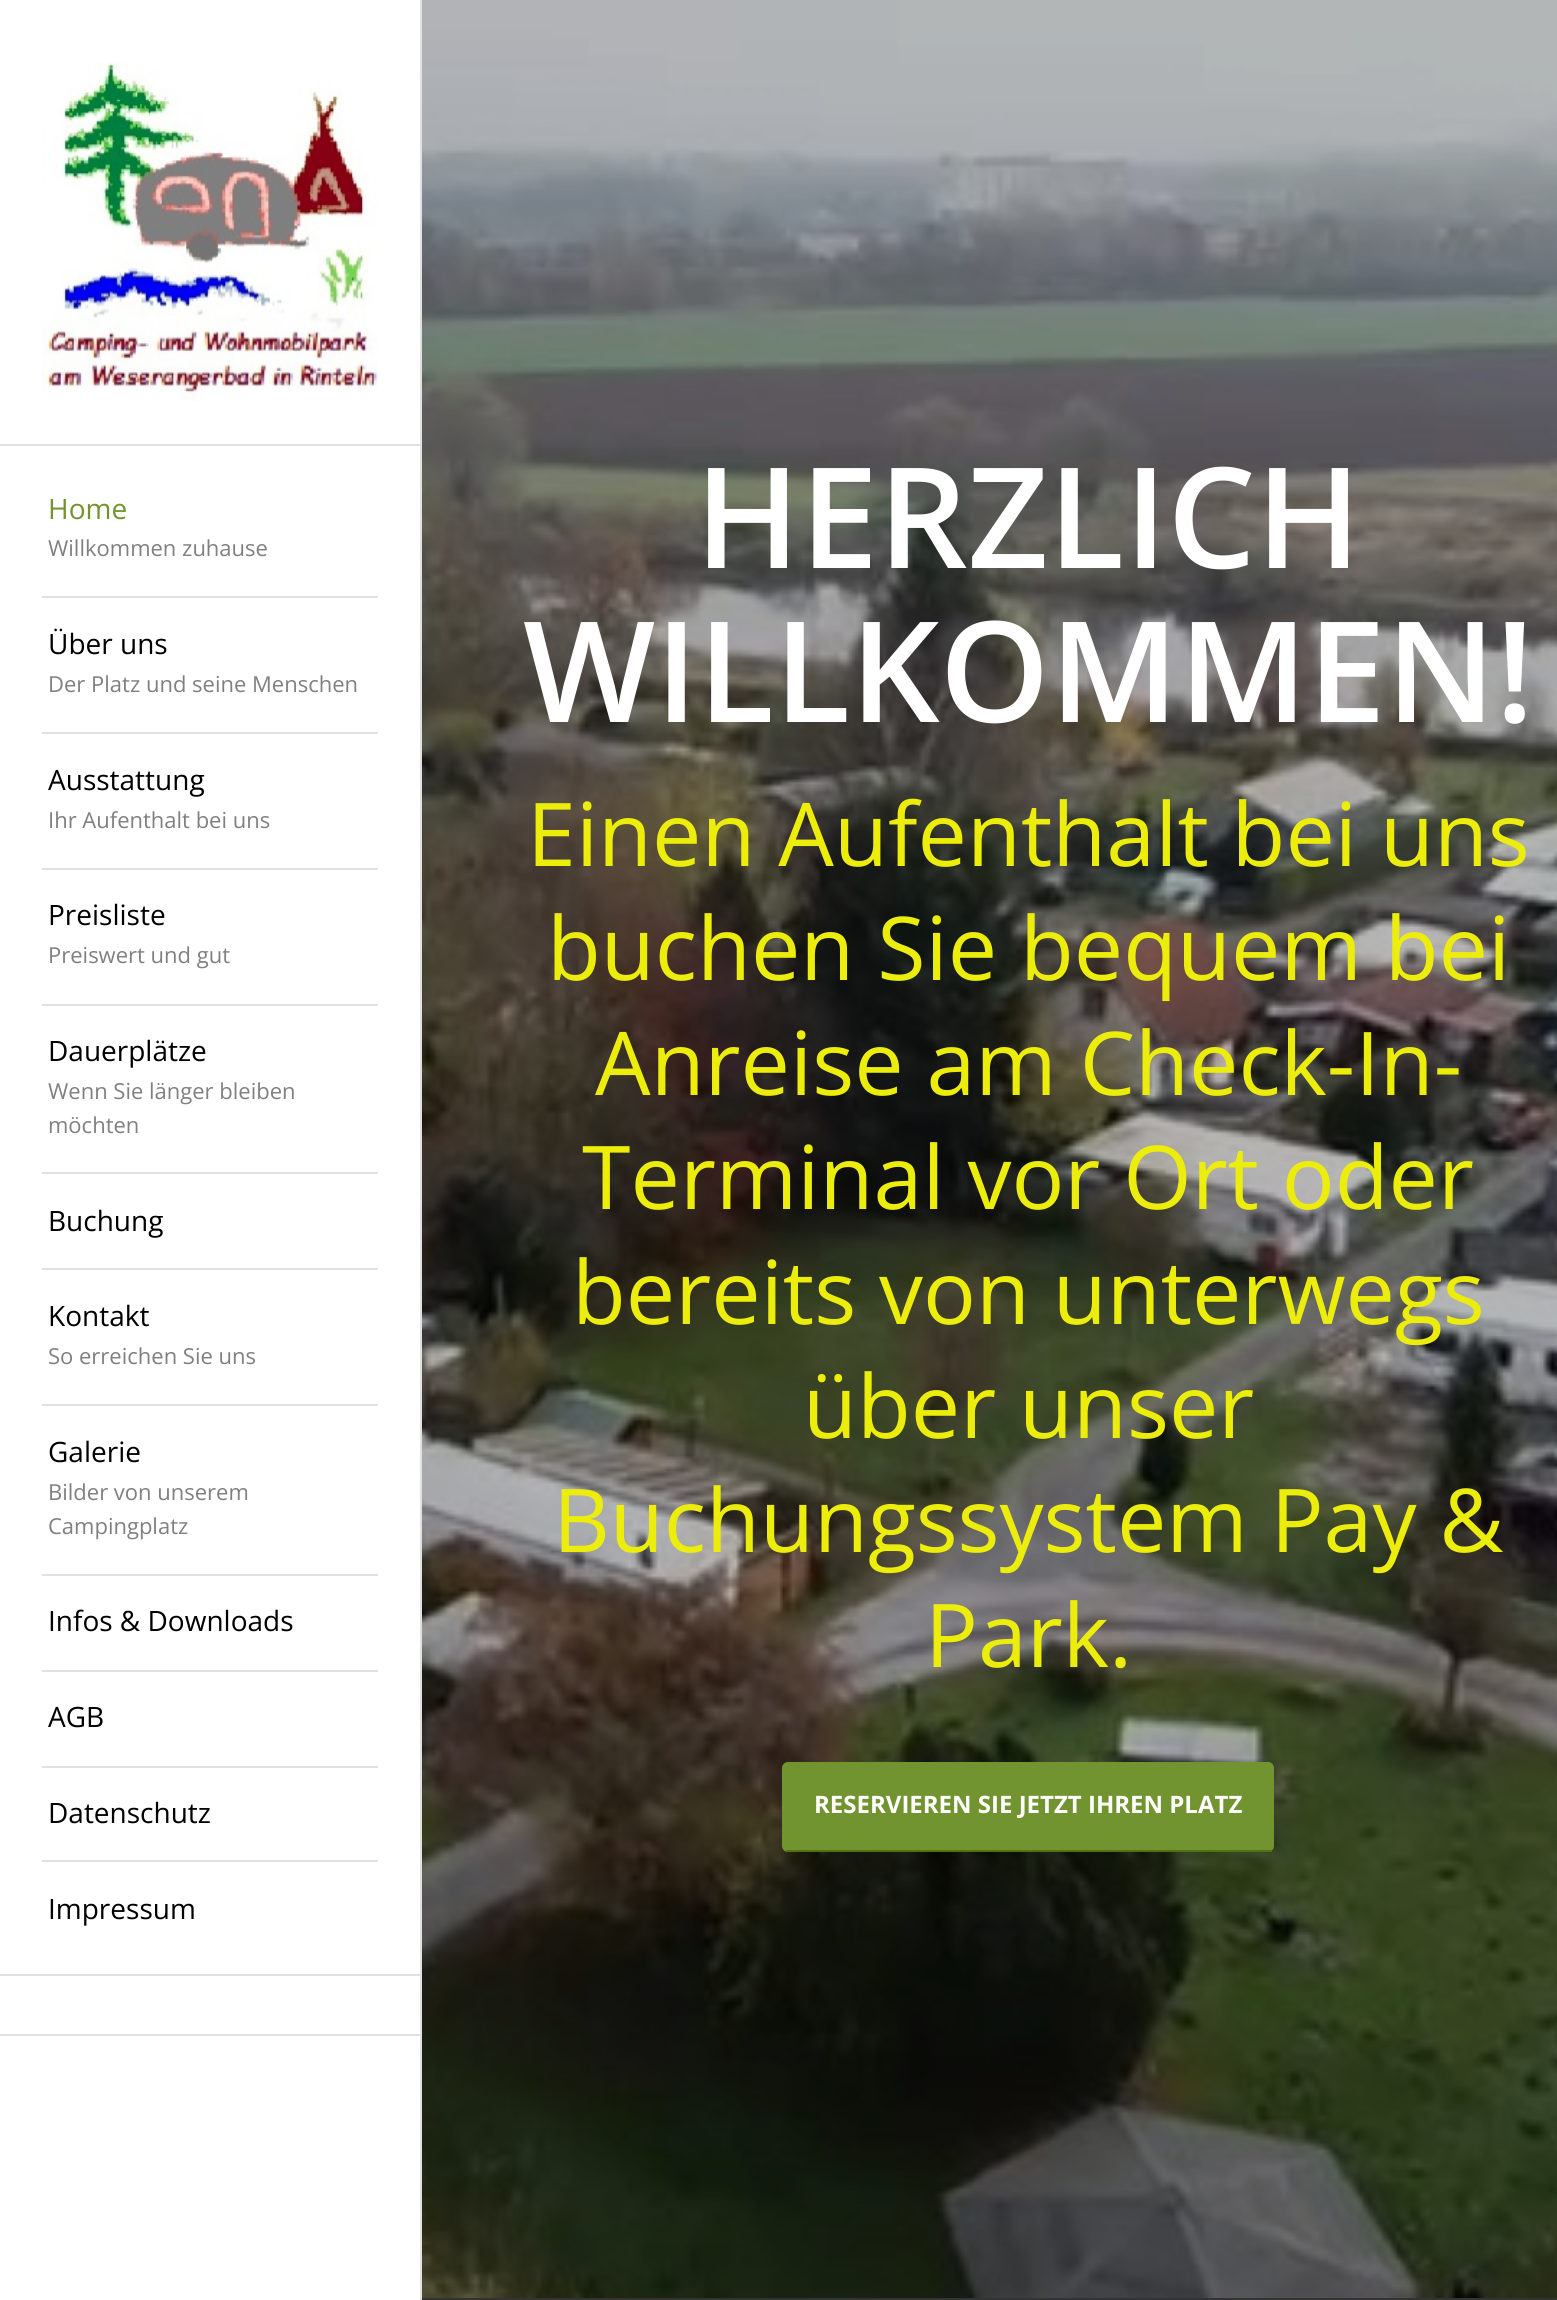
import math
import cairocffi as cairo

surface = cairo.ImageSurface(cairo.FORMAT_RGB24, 1557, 2300)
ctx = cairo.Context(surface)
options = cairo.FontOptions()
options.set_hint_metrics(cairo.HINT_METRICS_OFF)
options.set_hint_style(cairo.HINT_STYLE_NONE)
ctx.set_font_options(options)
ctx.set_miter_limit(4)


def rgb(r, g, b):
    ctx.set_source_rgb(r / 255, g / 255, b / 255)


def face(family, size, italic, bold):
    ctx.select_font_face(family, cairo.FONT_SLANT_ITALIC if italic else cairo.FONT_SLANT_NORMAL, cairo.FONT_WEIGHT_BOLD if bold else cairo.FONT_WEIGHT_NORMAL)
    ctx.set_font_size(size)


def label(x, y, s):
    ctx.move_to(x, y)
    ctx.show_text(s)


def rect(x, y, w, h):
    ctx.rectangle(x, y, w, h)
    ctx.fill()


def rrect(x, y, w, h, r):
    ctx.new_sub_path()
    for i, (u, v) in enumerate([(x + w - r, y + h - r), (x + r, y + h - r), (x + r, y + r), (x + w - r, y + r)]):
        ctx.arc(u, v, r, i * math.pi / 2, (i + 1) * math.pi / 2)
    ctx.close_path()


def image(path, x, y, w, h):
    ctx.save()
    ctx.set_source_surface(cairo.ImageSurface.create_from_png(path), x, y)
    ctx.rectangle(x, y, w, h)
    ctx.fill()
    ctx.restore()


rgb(255, 255, 255)
ctx.paint()
rgb(225, 225, 225)
rect(0, 2034, 420, 2)
rect(0, 444, 420, 2)
image('image0.png', 42, 62, 336, 339)
rect(42, 596, 336, 2)
face('Open Sans', 28, 0, 0)
rgb(113, 148, 48)
label(48, 519, 'Home')
face('Open Sans', 22, 0, 0)
rgb(128, 128, 128)
label(48, 556, 'Willkommen zuhause')
rgb(225, 225, 225)
rect(42, 732, 336, 2)
face('Open Sans', 28, 0, 0)
rgb(0, 0, 0)
label(48, 654, 'Über uns')
face('Open Sans', 22, 0, 0)
rgb(128, 128, 128)
label(48, 692, 'Der Platz und seine Menschen')
rgb(225, 225, 225)
rect(42, 868, 336, 2)
face('Open Sans', 28, 0, 0)
rgb(0, 0, 0)
label(48, 790, 'Ausstattung')
face('Open Sans', 22, 0, 0)
rgb(128, 128, 128)
label(48, 828, 'Ihr Aufenthalt bei uns')
rgb(225, 225, 225)
rect(42, 1004, 336, 2)
face('Open Sans', 28, 0, 0)
rgb(0, 0, 0)
label(48, 925, 'Preisliste')
face('Open Sans', 22, 0, 0)
rgb(128, 128, 128)
label(48, 963, 'Preiswert und gut')
rgb(225, 225, 225)
rect(42, 1172, 336, 2)
face('Open Sans', 28, 0, 0)
rgb(0, 0, 0)
label(48, 1061, 'Dauerplätze')
face('Open Sans', 22, 0, 0)
rgb(128, 128, 128)
label(48, 1099, 'Wenn Sie länger bleiben')
label(48, 1133, 'möchten')
rgb(225, 225, 225)
rect(42, 1268, 336, 2)
face('Open Sans', 28, 0, 0)
rgb(0, 0, 0)
label(48, 1231, 'Buchung')
rgb(225, 225, 225)
rect(42, 1404, 336, 2)
rgb(0, 0, 0)
label(48, 1326, 'Kontakt')
face('Open Sans', 22, 0, 0)
rgb(128, 128, 128)
label(48, 1364, 'So erreichen Sie uns')
rgb(225, 225, 225)
rect(42, 1574, 336, 2)
face('Open Sans', 28, 0, 0)
rgb(0, 0, 0)
label(48, 1462, 'Galerie')
face('Open Sans', 22, 0, 0)
rgb(128, 128, 128)
label(48, 1500, 'Bilder von unserem')
label(48, 1534, 'Campingplatz')
rgb(225, 225, 225)
rect(42, 1670, 336, 2)
face('Open Sans', 28, 0, 0)
rgb(0, 0, 0)
label(48, 1631, 'Infos & Downloads')
rgb(225, 225, 225)
rect(42, 1766, 336, 2)
rgb(0, 0, 0)
label(48, 1727, 'AGB')
rgb(225, 225, 225)
rect(42, 1860, 336, 2)
rgb(0, 0, 0)
label(48, 1823, 'Datenschutz')
label(48, 1919, 'Impressum')
rgb(225, 225, 225)
rect(0, 1974, 420, 2)
rect(420, 0, 2, 2300)
image('image1.png', 422, 0, 1135, 2298)
face('Open Sans SemiBold', 140, 0, 0)
rgb(255, 255, 255)
label(695, 568, 'HERZLICH')
label(523, 722, 'WILLKOMMEN!')
face('Open Sans', 88, 0, 0)
rgb(237, 237, 11)
label(527, 866, 'Einen Aufenthalt bei uns')
label(547, 980, 'buchen Sie bequem bei')
label(595, 1095, 'Anreise am Check-In-')
label(582, 1209, 'Terminal vor Ort oder')
label(572, 1324, 'bereits von unterwegs')
label(803, 1438, 'über unser')
label(553, 1552, 'Buchungssystem Pay &')
label(925, 1667, 'Park.')
rgb(113, 148, 48)
rrect(782, 1762, 492, 90, 6)
ctx.fill()
rgb(80, 114, 16)
rect(786, 1850, 486, 2)
face('Open Sans', 24, 0, 1)
rgb(255, 255, 255)
label(814, 1813, 'RESERVIEREN SIE JETZT IHREN PLATZ')
rgb(51, 51, 51)
rect(422, 2298, 1135, 2)
surface.write_to_png('render.png')
